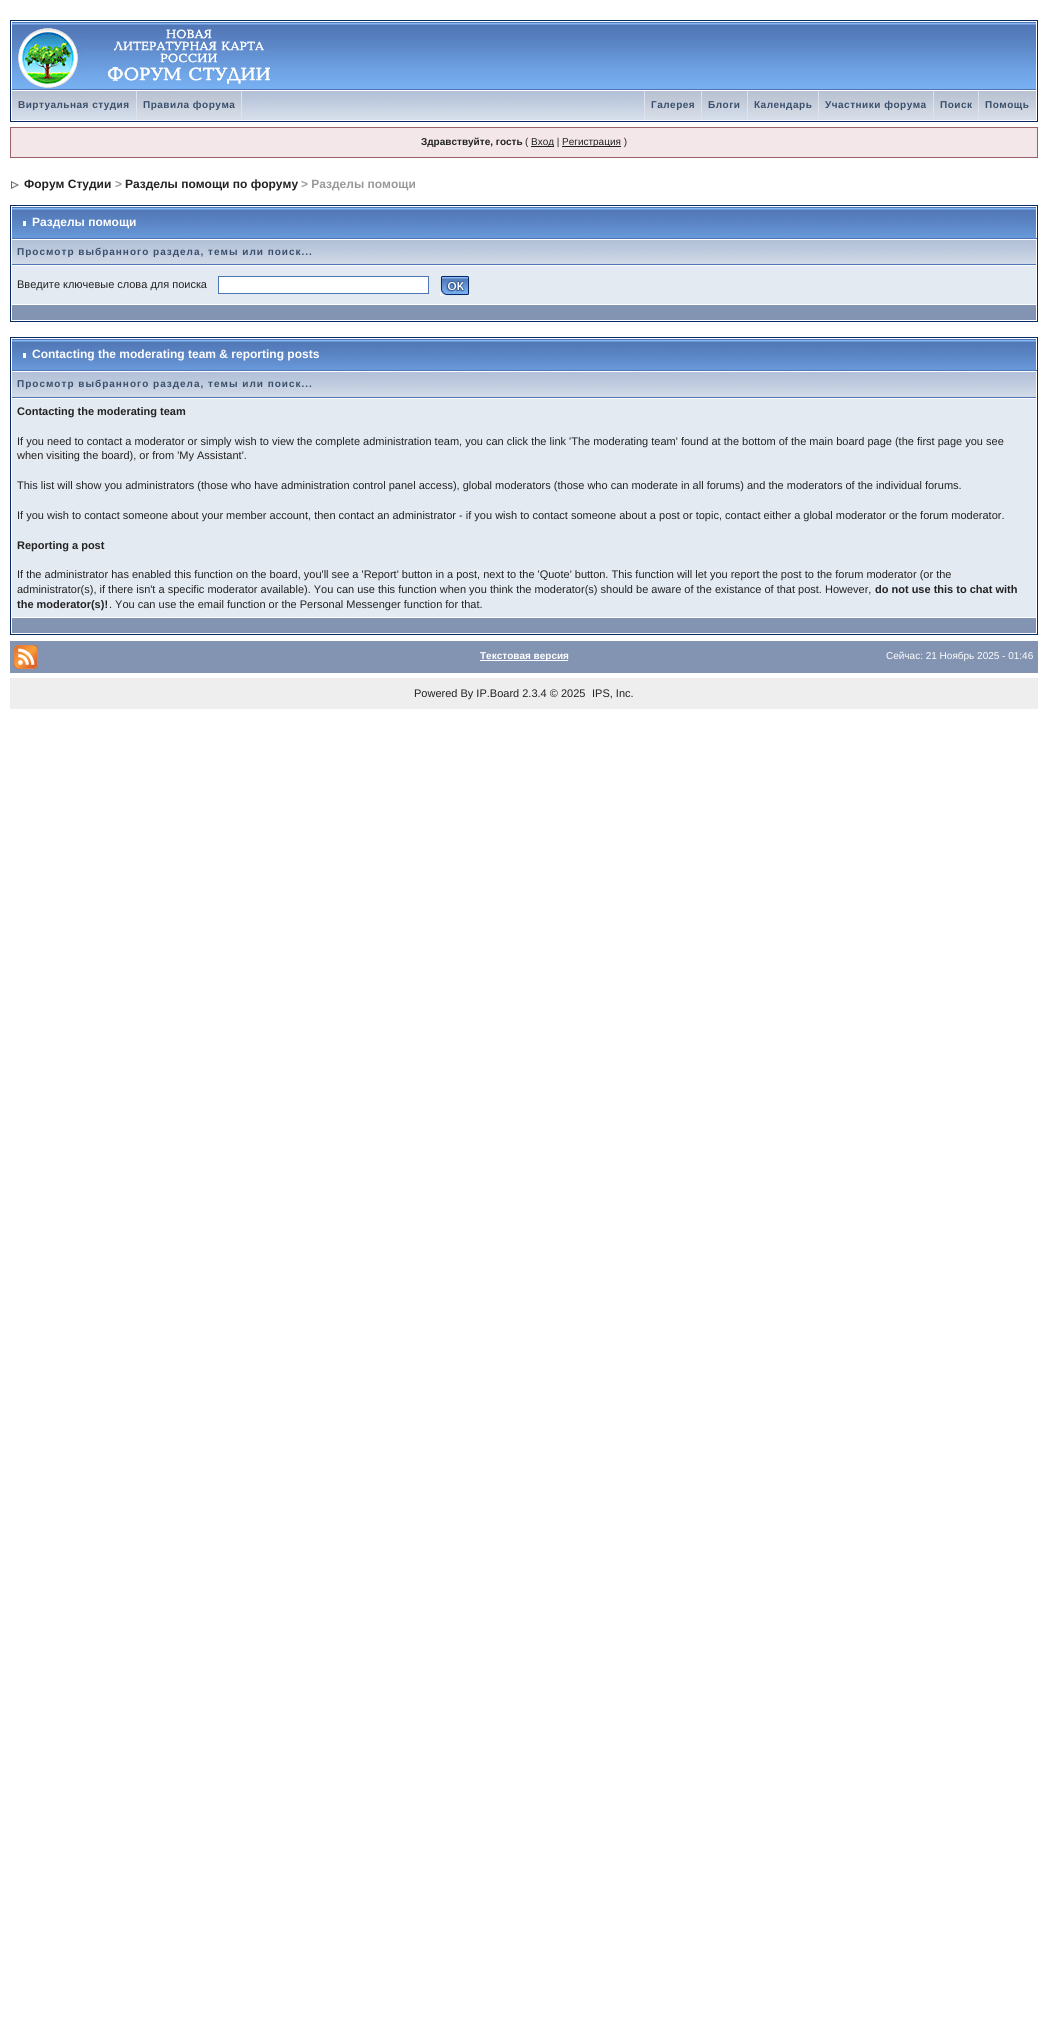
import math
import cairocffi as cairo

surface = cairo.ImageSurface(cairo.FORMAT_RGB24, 1048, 2040)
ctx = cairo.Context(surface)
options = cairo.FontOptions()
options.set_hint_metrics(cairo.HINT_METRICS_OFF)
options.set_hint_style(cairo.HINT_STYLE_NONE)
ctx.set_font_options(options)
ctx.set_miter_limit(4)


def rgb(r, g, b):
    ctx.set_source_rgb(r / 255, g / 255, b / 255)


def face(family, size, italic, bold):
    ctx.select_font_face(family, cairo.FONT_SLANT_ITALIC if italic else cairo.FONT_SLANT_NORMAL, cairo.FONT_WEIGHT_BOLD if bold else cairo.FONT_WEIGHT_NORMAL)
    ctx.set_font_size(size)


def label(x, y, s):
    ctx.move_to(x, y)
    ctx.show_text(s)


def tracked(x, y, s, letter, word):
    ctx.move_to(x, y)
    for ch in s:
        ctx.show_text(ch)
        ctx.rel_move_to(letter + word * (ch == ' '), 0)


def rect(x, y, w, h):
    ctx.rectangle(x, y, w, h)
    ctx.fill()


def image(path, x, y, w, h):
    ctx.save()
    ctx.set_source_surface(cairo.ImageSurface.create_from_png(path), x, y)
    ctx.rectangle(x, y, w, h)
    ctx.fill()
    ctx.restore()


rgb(255, 255, 255)
ctx.paint()
ctx.rectangle(10.5, 20.5, 1027, 101)
rgb(7, 42, 102)
ctx.set_line_width(1)
ctx.stroke()
image('image0.png', 12, 22, 1024, 68)
image('image1.png', 18, 28, 252, 60)
image('image2.png', 12, 91, 1024, 29)
image('image3.png', 12, 91, 124, 18)
rgb(220, 227, 238)
rect(136, 91, 1, 29)
face('Liberation Sans', 10, 0, 1)
rgb(58, 79, 108)
tracked(18, 108, 'Виртуальная студия', 0.5, 0)
image('image4.png', 137, 91, 104, 27)
rgb(220, 227, 238)
rect(241, 91, 1, 29)
rgb(58, 79, 108)
tracked(143, 108, 'Правила форума', 0.5, 0)
image('image5.png', 645, 91, 56, 27)
rgb(220, 227, 238)
rect(644, 91, 1, 29)
rgb(58, 79, 108)
tracked(651, 108, 'Галерея', 0.5, 0)
image('image6.png', 702, 91, 45, 18)
rgb(220, 227, 238)
rect(701, 91, 1, 29)
rgb(58, 79, 108)
tracked(708, 108, 'Блоги', 0.5, 0)
image('image7.png', 748, 91, 70, 26)
rgb(220, 227, 238)
rect(747, 91, 1, 29)
rgb(58, 79, 108)
tracked(754, 108, 'Календарь', 0.5, 0)
image('image8.png', 819, 91, 114, 26)
rgb(220, 227, 238)
rect(818, 91, 1, 29)
rgb(58, 79, 108)
tracked(825, 108, 'Участники форума', 0.5, 0)
image('image9.png', 934, 91, 44, 27)
rgb(220, 227, 238)
rect(933, 91, 1, 29)
rgb(58, 79, 108)
tracked(940, 108, 'Поиск', 0.5, 0)
image('image10.png', 979, 91, 57, 27)
rgb(220, 227, 238)
rect(978, 91, 1, 29)
rgb(58, 79, 108)
tracked(985, 108, 'Помощь', 0.5, 0)
rgb(244, 231, 234)
ctx.rectangle(10.5, 127.5, 1027, 30)
ctx.fill_preserve()
rgb(152, 98, 101)
ctx.stroke()
rgb(34, 34, 34)
label(421, 145, 'Здравствуйте, гость')
face('Liberation Sans', 10, 0, 0)
label(525, 145, '(')
rect(531, 146, 23, 1)
label(531, 145, 'Вход |')
rect(562, 146, 59, 1)
label(562, 145, 'Регистрация )')
image('image11.png', 11, 181, 8, 8)
face('Liberation Sans', 12, 0, 1)
label(24, 188, 'Форум Студии')
rgb(153, 153, 153)
label(115, 188, '>')
rgb(34, 34, 34)
label(125, 188, 'Разделы помощи по форуму')
rgb(153, 153, 153)
label(301, 188, '> Разделы помощи')
ctx.rectangle(10.5, 205.5, 1027, 116)
rgb(7, 42, 102)
ctx.stroke()
image('image12.png', 12, 207, 1024, 31)
rgb(81, 118, 181)
rect(11, 238, 1026, 1)
rgb(255, 255, 255)
rect(11, 238, 1, 1)
rect(23, 221, 3, 5)
label(32, 226, 'Разделы помощи')
image('image13.png', 12, 240, 1024, 24)
rgb(81, 118, 181)
rect(12, 264, 1024, 1)
face('Liberation Sans', 10, 0, 1)
rgb(58, 79, 108)
tracked(17, 255, 'Просмотр выбранного раздела, темы или поиск...', 1, 0)
rgb(228, 234, 242)
rect(12, 266, 1024, 38)
face('Liberation Sans', 11, 0, 0)
rgb(34, 34, 34)
label(17, 288, 'Введите ключевые слова для поиска')
rgb(255, 255, 255)
ctx.rectangle(218.5, 276.5, 210, 17)
ctx.fill_preserve()
rgb(76, 119, 182)
ctx.stroke()
image('image14.png', 440, 275, 30, 21)
rgb(131, 148, 178)
rect(12, 305, 1024, 15)
ctx.rectangle(10.5, 337.5, 1027, 297)
rgb(7, 42, 102)
ctx.stroke()
image('image12.png', 12, 339, 1024, 31)
rgb(81, 118, 181)
rect(11, 370, 1026, 1)
rgb(255, 255, 255)
rect(11, 370, 1, 1)
rect(23, 353, 3, 5)
face('Liberation Sans', 12, 0, 1)
label(32, 358, 'Contacting the moderating team & reporting posts')
image('image15.png', 12, 372, 1024, 25)
rgb(81, 118, 181)
rect(12, 397, 1024, 1)
face('Liberation Sans', 10, 0, 1)
rgb(58, 79, 108)
tracked(17, 387, 'Просмотр выбранного раздела, темы или поиск...', 1, 0)
rgb(228, 234, 242)
rect(12, 399, 1024, 218)
face('Liberation Sans', 11, 0, 1)
rgb(34, 34, 34)
label(17, 415, 'Contacting the moderating team')
face('Liberation Sans', 11, 0, 0)
label(17, 445, 'If you need to contact a moderator or simply wish to view the complete administration team, you can click the link \'The moderating team\' found at the bottom of the main board page (the first page you see')
label(17, 459, 'when visiting the board), or from \'My Assistant\'.')
label(17, 489, 'This list will show you administrators (those who have administration control panel access), global moderators (those who can moderate in all forums) and the moderators of the individual forums.')
label(17, 519, 'If you wish to contact someone about your member account, then contact an administrator - if you wish to contact someone about a post or topic, contact either a global moderator or the forum moderator.')
face('Liberation Sans', 11, 0, 1)
label(17, 549, 'Reporting a post')
face('Liberation Sans', 11, 0, 0)
label(17, 578, 'If the administrator has enabled this function on the board, you\'ll see a \'Report\' button in a post, next to the \'Quote\' button. This function will let you report the post to the forum moderator (or the')
label(17, 593, 'administrator(s), if there isn\'t a specific moderator available). You can use this function when you think the moderator(s) should be aware of the existance of that post. However,')
face('Liberation Sans', 11, 0, 1)
label(875, 593, 'do not use this to chat with')
label(17, 608, 'the moderator(s)!')
face('Liberation Sans', 11, 0, 0)
label(109, 608, '. You can use the email function or the Personal Messenger function for that.')
rgb(131, 148, 178)
rect(12, 618, 1024, 15)
rect(10, 641, 1028, 32)
image('image16.png', 14, 645, 24, 24)
rgb(255, 255, 255)
rect(480, 660, 88, 1)
face('Liberation Sans', 10, 0, 1)
label(480, 659, 'Текстовая версия')
face('Liberation Sans', 10, 0, 0)
label(886, 659, 'Сейчас: 21 Ноябрь 2025 - 01:46')
rgb(238, 238, 238)
rect(10, 678, 1028, 31)
face('Liberation Sans', 11, 0, 0)
rgb(34, 34, 34)
label(414, 697, 'Powered By IP.Board 2.3.4 © 2025')
label(592, 697, 'IPS, Inc.')
surface.write_to_png('render.png')
